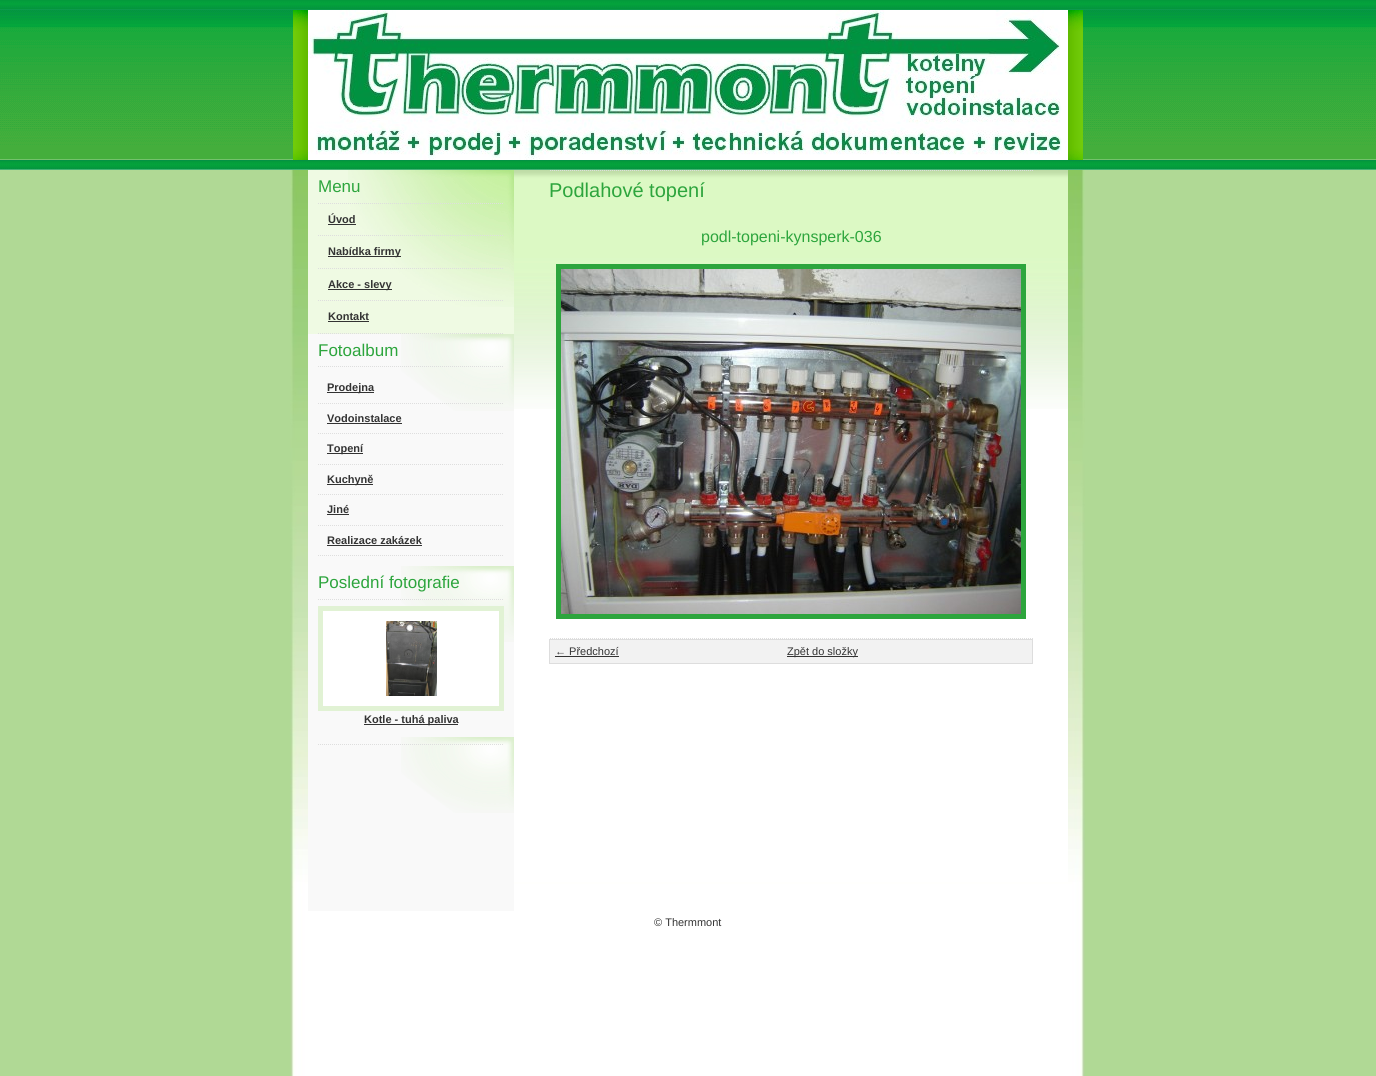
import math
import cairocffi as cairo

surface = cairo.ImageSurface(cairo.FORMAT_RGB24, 1376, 1076)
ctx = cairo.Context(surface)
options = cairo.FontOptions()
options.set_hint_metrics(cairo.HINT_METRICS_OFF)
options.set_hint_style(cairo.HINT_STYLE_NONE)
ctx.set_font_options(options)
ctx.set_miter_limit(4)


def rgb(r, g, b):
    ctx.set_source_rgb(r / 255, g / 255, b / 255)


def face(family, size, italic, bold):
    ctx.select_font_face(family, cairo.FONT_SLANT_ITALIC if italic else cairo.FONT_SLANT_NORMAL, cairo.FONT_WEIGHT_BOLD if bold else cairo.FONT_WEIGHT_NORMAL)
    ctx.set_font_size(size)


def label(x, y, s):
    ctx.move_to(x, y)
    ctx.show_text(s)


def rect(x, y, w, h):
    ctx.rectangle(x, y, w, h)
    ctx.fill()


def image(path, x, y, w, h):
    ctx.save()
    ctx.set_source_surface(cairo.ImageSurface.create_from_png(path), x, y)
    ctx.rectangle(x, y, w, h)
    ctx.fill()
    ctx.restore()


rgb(176, 217, 149)
ctx.paint()
image('image0.png', 290, 170, 795, 906)
rgb(255, 255, 255)
rect(308, 409, 760, 473)
image('image1.png', 0, 0, 1376, 170)
image('image2.png', 308, 10, 760, 150)
image('image3.png', 293, 10, 790, 150)
rgb(239, 250, 227)
rect(308, 170, 206, 164)
image('image4.png', 348, 170, 166, 137)
image('image5.png', 318, 203, 185, 1)
face('Liberation Sans', 17, 0, 0)
rgb(45, 165, 61)
label(318, 192, 'Menu')
image('image6.png', 318, 235, 185, 1)
face('Liberation Sans', 11, 0, 1)
rgb(51, 51, 51)
label(328, 223, 'Úvod')
rect(328, 224, 28, 1)
image('image7.png', 318, 268, 185, 1)
rect(328, 256, 73, 1)
label(328, 255, 'Nabídka firmy')
image('image8.png', 318, 300, 185, 1)
rect(328, 289, 64, 1)
label(328, 288, 'Akce - slevy')
image('image9.png', 318, 333, 185, 1)
label(328, 320, 'Kontakt')
rect(328, 321, 41, 1)
rgb(249, 249, 249)
rect(308, 334, 206, 577)
image('image10.png', 401, 334, 113, 77)
image('image11.png', 318, 366, 185, 1)
face('Liberation Sans', 17, 0, 0)
rgb(45, 165, 61)
label(318, 356, 'Fotoalbum')
image('image12.png', 318, 403, 185, 1)
rgb(51, 51, 51)
rect(327, 392, 47, 1)
face('Liberation Sans', 11, 0, 1)
label(327, 391, 'Prodejna')
image('image13.png', 318, 433, 185, 1)
label(327, 422, 'Vodoinstalace')
rect(327, 423, 75, 1)
image('image13.png', 318, 464, 185, 1)
rect(327, 453, 36, 1)
label(327, 452, 'Topení')
image('image13.png', 318, 494, 185, 1)
rect(327, 484, 46, 1)
label(327, 483, 'Kuchyně')
image('image13.png', 318, 525, 185, 1)
label(327, 513, 'Jiné')
rect(327, 514, 22, 1)
image('image13.png', 318, 555, 185, 1)
label(327, 544, 'Realizace zakázek')
rect(327, 545, 95, 1)
image('image14.png', 401, 566, 113, 76)
image('image15.png', 318, 599, 185, 1)
face('Liberation Sans', 17, 0, 0)
rgb(45, 165, 61)
label(318, 588, 'Poslední fotografie')
rgb(255, 255, 255)
ctx.rectangle(320.5, 608.5, 181, 100)
ctx.fill_preserve()
rgb(225, 242, 212)
ctx.set_line_width(5)
ctx.stroke()
image('image16.png', 386, 621, 51, 75)
rgb(51, 51, 51)
rect(364, 724, 94, 1)
face('Liberation Sans', 11, 0, 1)
label(364, 723, 'Kotle - tuhá paliva')
image('image14.png', 401, 737, 113, 76)
image('image17.png', 318, 744, 185, 1)
image('image18.png', 514, 170, 554, 239)
image('image19.png', 550, 170, 483, 1)
face('Liberation Sans', 20, 0, 0)
rgb(45, 165, 61)
label(549, 197, 'Podlahové topení')
image('image20.png', 550, 638, 483, 1)
face('Liberation Sans', 16, 0, 0)
label(701, 242, 'podl-topeni-kynsperk-036')
ctx.rectangle(558.5, 266.5, 465, 350)
ctx.stroke()
image('image21.png', 561, 269, 460, 345)
rgb(242, 242, 242)
ctx.rectangle(549.5, 639.5, 483, 24)
ctx.fill_preserve()
rgb(221, 221, 221)
ctx.set_line_width(1)
ctx.stroke()
face('Liberation Sans', 11, 0, 0)
rgb(51, 51, 51)
label(555, 655, '← Předchozí')
rect(555, 656, 64, 1)
rect(787, 656, 71, 1)
label(787, 655, 'Zpět do složky')
label(654, 926, '© Thermmont')
surface.write_to_png('render.png')
